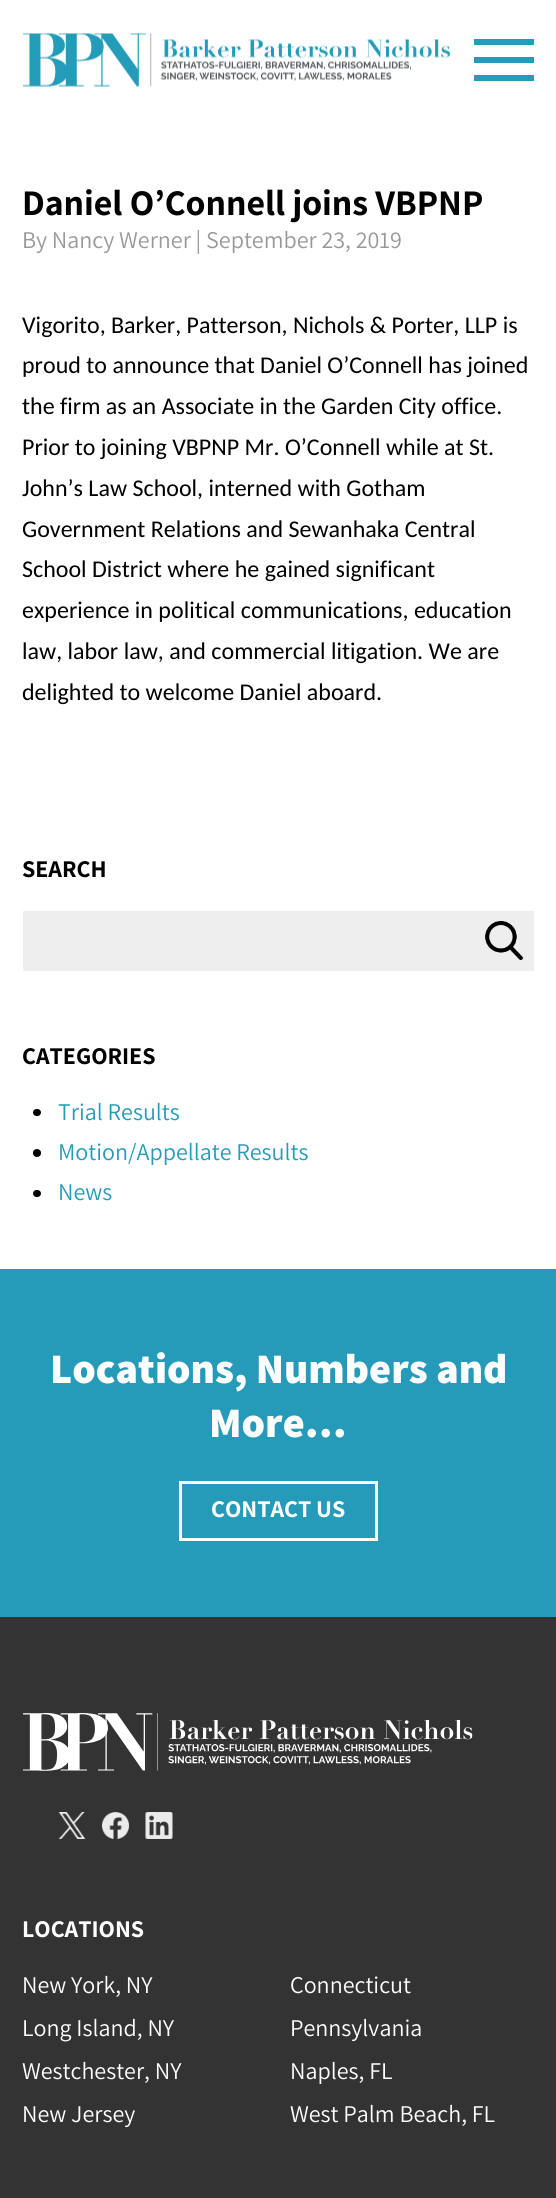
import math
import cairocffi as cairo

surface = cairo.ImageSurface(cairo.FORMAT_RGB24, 556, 2198)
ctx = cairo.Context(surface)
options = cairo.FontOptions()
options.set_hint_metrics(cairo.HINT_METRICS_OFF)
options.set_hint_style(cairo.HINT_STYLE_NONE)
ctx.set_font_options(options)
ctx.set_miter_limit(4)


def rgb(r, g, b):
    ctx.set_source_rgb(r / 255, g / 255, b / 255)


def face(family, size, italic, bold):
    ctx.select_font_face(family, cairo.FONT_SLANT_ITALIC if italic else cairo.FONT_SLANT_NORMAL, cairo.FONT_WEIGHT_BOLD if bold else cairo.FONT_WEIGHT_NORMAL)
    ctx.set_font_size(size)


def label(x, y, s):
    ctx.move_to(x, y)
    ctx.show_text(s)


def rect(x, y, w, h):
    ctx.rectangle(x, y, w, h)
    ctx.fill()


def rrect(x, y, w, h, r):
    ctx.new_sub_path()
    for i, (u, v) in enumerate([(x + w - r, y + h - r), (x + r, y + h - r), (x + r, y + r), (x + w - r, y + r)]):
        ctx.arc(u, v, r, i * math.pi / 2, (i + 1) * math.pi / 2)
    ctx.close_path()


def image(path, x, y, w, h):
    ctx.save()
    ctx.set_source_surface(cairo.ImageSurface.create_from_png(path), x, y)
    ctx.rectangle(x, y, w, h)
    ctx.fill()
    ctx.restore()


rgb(255, 255, 255)
ctx.paint()
image('image0.png', 23, 33, 427, 54)
rgb(37, 155, 185)
rect(474, 57, 60, 6)
rect(474, 39, 60, 6)
rect(474, 75, 60, 6)
face('Assistant', 36, 0, 1)
rgb(0, 0, 0)
label(22, 215, 'Daniel O’Connell joins VBPNP')
face('Assistant', 24, 0, 0)
rgb(153, 153, 153)
label(22, 248, 'By Nancy Werner | September 23, 2019')
face('Carlito', 24, 0, 0)
rgb(0, 0, 0)
label(22, 333, 'Vigorito, Barker, Patterson, Nichols & Porter, LLP is')
label(22, 373, 'proud to announce that Daniel O’Connell has joined')
label(22, 414, 'the firm as an Associate in the Garden City office.')
label(22, 455, 'Prior to joining VBPNP Mr. O’Connell while at St.')
label(22, 496, 'John’s Law School, interned with Gotham')
label(22, 537, 'Government Relations and Sewanhaka Central')
label(22, 577, 'School District where he gained significant')
label(22, 618, 'experience in political communications, education')
label(22, 659, 'law, labor law, and commercial litigation. We are')
label(22, 700, 'delighted to welcome Daniel aboard.')
face('Assistant', 24, 0, 1)
label(22, 877, 'SEARCH')
rgb(238, 238, 238)
rect(23, 911, 511, 60)
image('image1.png', 485, 921, 38, 39)
rgb(0, 0, 0)
label(22, 1064, 'CATEGORIES')
rrect(33, 1109, 8, 7, 3.5)
ctx.fill()
face('Assistant', 24, 0, 0)
rgb(37, 155, 185)
label(58, 1120, 'Trial Results')
rgb(0, 0, 0)
ctx.new_path()
ctx.arc(37, 1153, 4, 0, 2 * math.pi)
ctx.fill()
rgb(37, 155, 185)
label(58, 1160, 'Motion/Appellate Results')
rgb(0, 0, 0)
rrect(33, 1190, 8, 7, 3.5)
ctx.fill()
rgb(37, 155, 185)
label(58, 1200, 'News')
rect(0, 1269, 556, 348)
face('Assistant ExtraBold', 42, 0, 0)
rgb(255, 255, 255)
label(50, 1383, 'Locations, Numbers and')
label(209, 1437, 'More…')
ctx.rectangle(180.5, 1482.5, 196, 57)
ctx.set_line_width(3)
ctx.stroke()
face('Assistant', 24, 0, 1)
label(211, 1517, 'CONTACT US')
rgb(51, 51, 51)
rect(0, 1617, 556, 581)
image('image2.png', 23, 1713, 450, 58)
image('image3.png', 58, 1812, 28, 27)
image('image4.png', 102, 1812, 27, 27)
image('image5.png', 145, 1812, 28, 27)
rgb(255, 255, 255)
label(22, 1937, 'LOCATIONS')
face('Assistant', 24, 0, 0)
label(22, 1993, 'New York, NY')
label(290, 1993, 'Connecticut')
label(22, 2036, 'Long Island, NY')
label(290, 2036, 'Pennsylvania')
label(22, 2079, 'Westchester, NY')
label(290, 2079, 'Naples, FL')
label(22, 2122, 'New Jersey')
label(290, 2122, 'West Palm Beach, FL')
surface.write_to_png('render.png')
